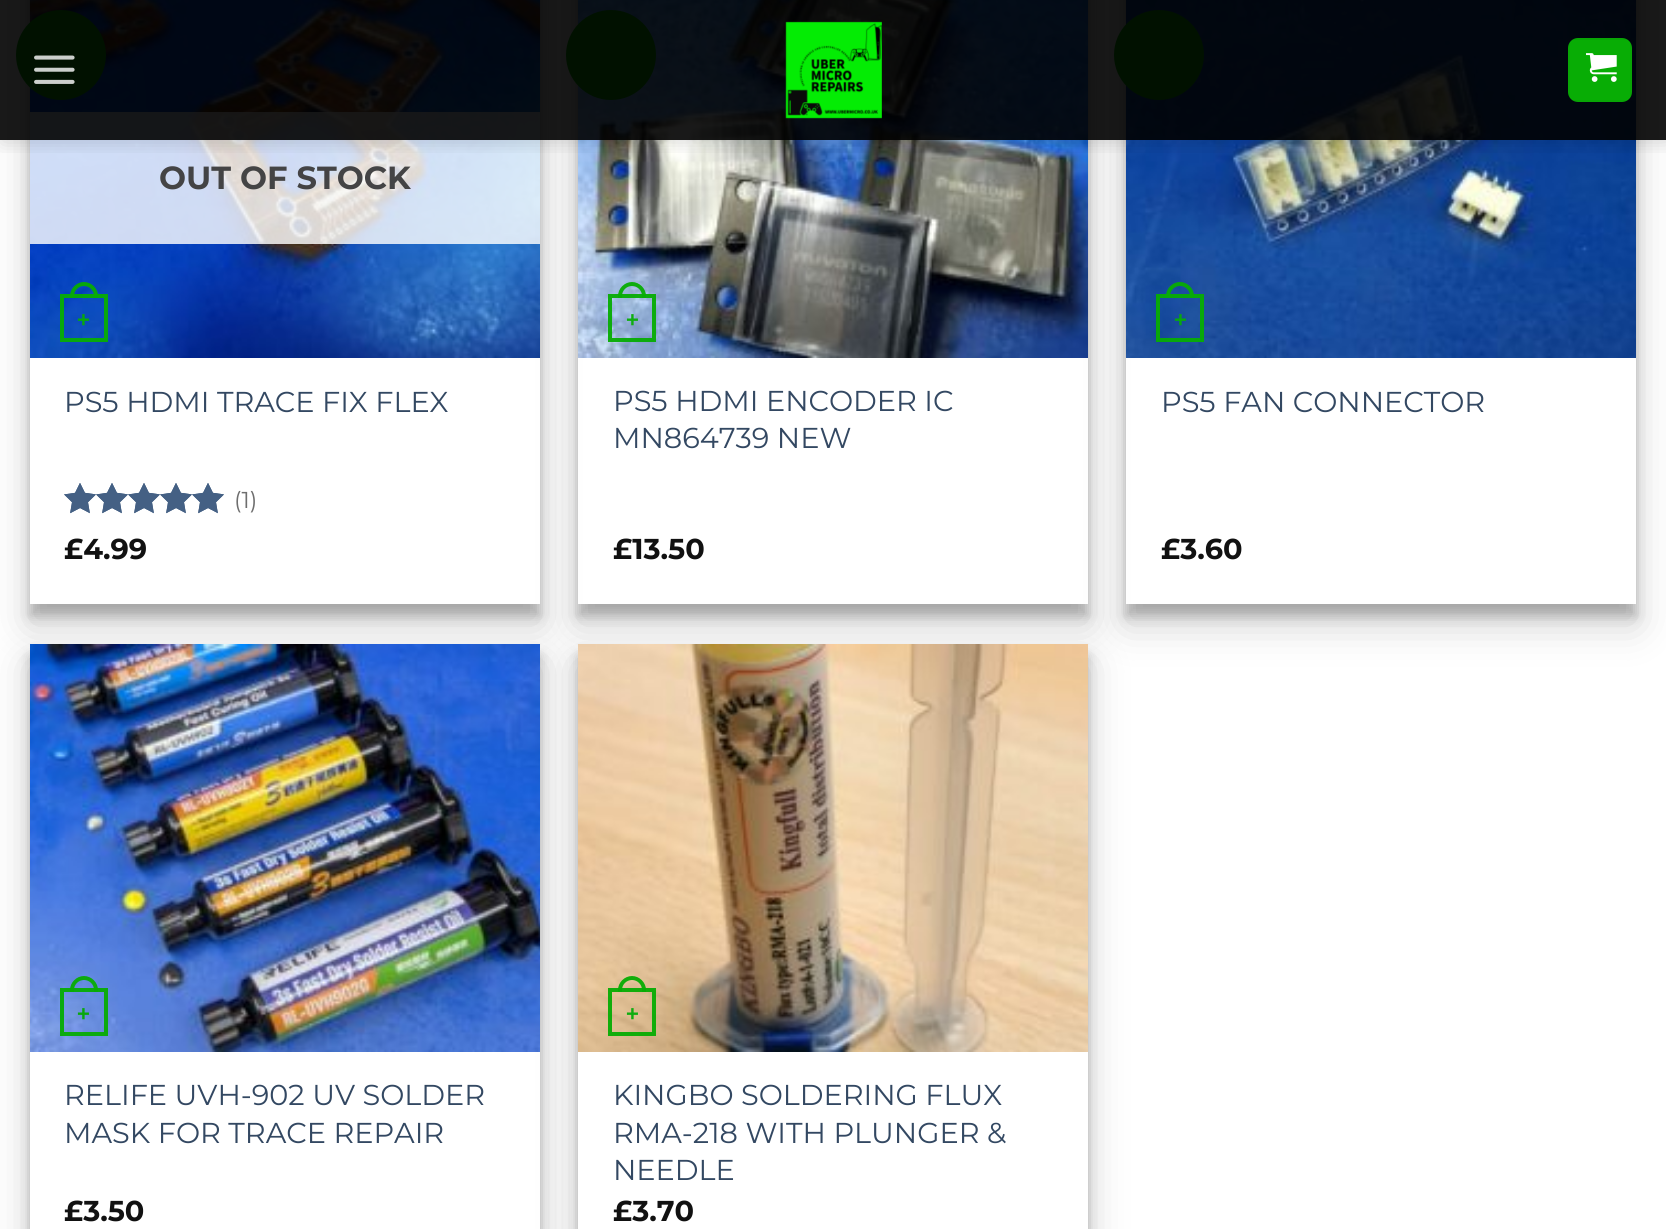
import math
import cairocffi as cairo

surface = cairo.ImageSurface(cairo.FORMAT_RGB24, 1666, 1229)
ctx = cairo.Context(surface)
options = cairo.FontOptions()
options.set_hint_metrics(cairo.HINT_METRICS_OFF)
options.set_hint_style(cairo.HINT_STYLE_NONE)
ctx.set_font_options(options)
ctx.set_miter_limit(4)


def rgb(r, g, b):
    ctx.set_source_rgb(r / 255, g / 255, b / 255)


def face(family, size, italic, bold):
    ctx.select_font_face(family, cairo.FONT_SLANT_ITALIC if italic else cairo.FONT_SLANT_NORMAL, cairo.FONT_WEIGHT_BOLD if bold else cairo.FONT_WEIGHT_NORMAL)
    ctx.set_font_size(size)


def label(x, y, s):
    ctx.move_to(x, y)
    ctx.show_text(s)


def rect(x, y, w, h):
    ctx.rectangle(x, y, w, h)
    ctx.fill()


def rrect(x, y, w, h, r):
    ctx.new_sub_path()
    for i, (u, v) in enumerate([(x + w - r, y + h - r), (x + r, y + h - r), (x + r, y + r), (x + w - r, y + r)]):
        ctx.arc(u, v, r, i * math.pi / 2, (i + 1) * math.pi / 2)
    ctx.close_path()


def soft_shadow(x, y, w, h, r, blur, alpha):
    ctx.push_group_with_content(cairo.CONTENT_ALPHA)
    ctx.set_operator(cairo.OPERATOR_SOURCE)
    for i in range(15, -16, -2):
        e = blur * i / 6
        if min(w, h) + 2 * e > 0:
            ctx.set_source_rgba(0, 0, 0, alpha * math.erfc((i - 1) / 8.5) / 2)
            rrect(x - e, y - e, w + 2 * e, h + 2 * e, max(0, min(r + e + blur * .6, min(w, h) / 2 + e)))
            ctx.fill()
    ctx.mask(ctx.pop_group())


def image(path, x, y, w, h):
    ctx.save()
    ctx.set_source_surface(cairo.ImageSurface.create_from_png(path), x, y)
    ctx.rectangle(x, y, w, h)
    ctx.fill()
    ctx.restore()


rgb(255, 255, 255)
ctx.paint()
ctx.save()
ctx.set_fill_rule(cairo.FILL_RULE_EVEN_ODD)
ctx.new_path()
ctx.move_to(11, 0)
ctx.line_to(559, 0)
ctx.line_to(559, 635)
ctx.line_to(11, 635)
ctx.close_path()
ctx.move_to(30, -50)
ctx.line_to(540, -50)
ctx.line_to(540, 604)
ctx.line_to(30, 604)
ctx.close_path()
ctx.clip()
rgb(0, 0, 0)
soft_shadow(30, -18, 510, 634, 0, 6, 0.22)
ctx.restore()
ctx.save()
ctx.set_fill_rule(cairo.FILL_RULE_EVEN_ODD)
ctx.new_path()
ctx.move_to(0, 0)
ctx.line_to(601, 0)
ctx.line_to(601, 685)
ctx.line_to(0, 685)
ctx.close_path()
ctx.move_to(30, -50)
ctx.line_to(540, -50)
ctx.line_to(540, 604)
ctx.line_to(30, 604)
ctx.close_path()
ctx.clip()
rgb(0, 0, 0)
soft_shadow(30, -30, 510, 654, 0, 20, 0.19)
ctx.restore()
image('image3.png', 30, 0, 510, 358)
rgb(8, 173, 5)
ctx.arc(61, 55, 45, 0, 2 * math.pi)
ctx.fill()
ctx.set_source_rgba(1, 1, 1, 0.81)
rect(30, 112, 510, 132)
ctx.save()
ctx.set_fill_rule(cairo.FILL_RULE_EVEN_ODD)
ctx.new_path()
ctx.move_to(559, 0)
ctx.line_to(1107, 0)
ctx.line_to(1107, 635)
ctx.line_to(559, 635)
ctx.close_path()
ctx.move_to(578, -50)
ctx.line_to(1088, -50)
ctx.line_to(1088, 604)
ctx.line_to(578, 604)
ctx.close_path()
ctx.clip()
rgb(0, 0, 0)
soft_shadow(578, -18, 510, 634, 0, 6, 0.22)
ctx.restore()
ctx.save()
ctx.set_fill_rule(cairo.FILL_RULE_EVEN_ODD)
ctx.new_path()
ctx.move_to(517, 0)
ctx.line_to(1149, 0)
ctx.line_to(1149, 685)
ctx.line_to(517, 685)
ctx.close_path()
ctx.move_to(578, -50)
ctx.line_to(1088, -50)
ctx.line_to(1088, 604)
ctx.line_to(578, 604)
ctx.close_path()
ctx.clip()
rgb(0, 0, 0)
soft_shadow(578, -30, 510, 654, 0, 20, 0.19)
ctx.restore()
image('image6.png', 578, 0, 510, 358)
rgb(8, 173, 5)
ctx.arc(611, 55, 45, 0, 2 * math.pi)
ctx.fill()
ctx.save()
ctx.set_fill_rule(cairo.FILL_RULE_EVEN_ODD)
ctx.new_path()
ctx.move_to(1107, 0)
ctx.line_to(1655, 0)
ctx.line_to(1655, 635)
ctx.line_to(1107, 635)
ctx.close_path()
ctx.move_to(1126, -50)
ctx.line_to(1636, -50)
ctx.line_to(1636, 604)
ctx.line_to(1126, 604)
ctx.close_path()
ctx.clip()
rgb(0, 0, 0)
soft_shadow(1126, -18, 510, 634, 0, 6, 0.22)
ctx.restore()
ctx.save()
ctx.set_fill_rule(cairo.FILL_RULE_EVEN_ODD)
ctx.new_path()
ctx.move_to(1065, 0)
ctx.line_to(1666, 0)
ctx.line_to(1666, 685)
ctx.line_to(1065, 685)
ctx.close_path()
ctx.move_to(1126, -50)
ctx.line_to(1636, -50)
ctx.line_to(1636, 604)
ctx.line_to(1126, 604)
ctx.close_path()
ctx.clip()
rgb(0, 0, 0)
soft_shadow(1126, -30, 510, 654, 0, 20, 0.19)
ctx.restore()
image('image7.png', 1126, 0, 510, 358)
ctx.arc(1159, 55, 45, 0, 2 * math.pi)
ctx.fill()
ctx.save()
ctx.rectangle(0, 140, 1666, 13)
ctx.clip()
rgb(0, 0, 0)
soft_shadow(2, 2, 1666, 140, 0, 10, 0.15)
ctx.restore()
ctx.set_source_rgba(0, 0, 0, 0.9)
rect(0, 0, 1666, 140)
image('image0.png', 34, 55, 41, 29)
image('image1.png', 785, 21, 97, 98)
rgb(8, 173, 5)
rrect(1568, 38, 64, 64, 10)
ctx.fill()
ctx.rectangle(1569, 39, 62, 62)
ctx.set_source_rgba(0, 0, 0, 0.05)
ctx.stroke()
image('image2.png', 1586, 53, 31, 29)
face('Montserrat', 32, 0, 1)
rgb(68, 68, 69)
label(159, 189, 'OUT OF STOCK')
ctx.rectangle(62, 296, 44, 44)
ctx.set_source_rgba(0.031, 0.678, 0.02, 0.95)
ctx.set_line_width(4)
ctx.stroke()
ctx.set_fill_rule(cairo.FILL_RULE_EVEN_ODD)
ctx.new_path()
ctx.move_to(84, 282)
ctx.curve_to(91.5, 282, 98, 288.5, 98, 296)
ctx.line_to(98, 298)
ctx.line_to(70, 298)
ctx.line_to(70, 296)
ctx.curve_to(70, 288.5, 76.5, 282, 84, 282)
ctx.close_path()
ctx.move_to(84, 286)
ctx.curve_to(89.5, 286, 94, 290.5, 94, 296)
ctx.line_to(94, 298)
ctx.line_to(74, 298)
ctx.line_to(74, 296)
ctx.curve_to(74, 290.5, 78.5, 286, 84, 286)
ctx.close_path()
ctx.fill()
face('Liberation Sans', 22, 0, 1)
rgb(8, 168, 14)
label(77, 327, '+')
face('Montserrat', 28.75, 0, 0)
rgb(51, 72, 98)
label(64, 412, 'PS5 HDMI TRACE FIX FLEX')
image('image4.png', 64, 483, 160, 31)
image('image5.png', 64, 483, 160, 31)
face('Montserrat', 23, 0, 0)
rgb(110, 110, 110)
label(234, 508, '(1)')
face('Montserrat', 28.75, 0, 1)
rgb(17, 17, 17)
label(64, 559, '£4.99')
ctx.rectangle(610, 296, 44, 44)
ctx.set_source_rgba(0.031, 0.678, 0.02, 0.95)
ctx.stroke()
ctx.new_path()
ctx.move_to(632, 282)
ctx.curve_to(639.5, 282, 646, 288.5, 646, 296)
ctx.line_to(646, 298)
ctx.line_to(618, 298)
ctx.line_to(618, 296)
ctx.curve_to(618, 288.5, 624.5, 282, 632, 282)
ctx.close_path()
ctx.move_to(632, 286)
ctx.curve_to(637.5, 286, 642, 290.5, 642, 296)
ctx.line_to(642, 298)
ctx.line_to(622, 298)
ctx.line_to(622, 296)
ctx.curve_to(622, 290.5, 626.5, 286, 632, 286)
ctx.close_path()
ctx.fill()
face('Liberation Sans', 22, 0, 1)
rgb(15, 173, 16)
label(626, 327, '+')
face('Montserrat', 28.75, 0, 0)
rgb(51, 72, 98)
label(613, 411, 'PS5 HDMI ENCODER IC')
label(613, 448, 'MN864739 NEW')
face('Montserrat', 28.75, 0, 1)
rgb(17, 17, 17)
label(613, 559, '£13.50')
ctx.rectangle(1158, 296, 44, 44)
ctx.set_source_rgba(0.031, 0.678, 0.02, 0.95)
ctx.stroke()
ctx.new_path()
ctx.move_to(1180, 282)
ctx.curve_to(1187.5, 282, 1194, 288.5, 1194, 296)
ctx.line_to(1194, 298)
ctx.line_to(1166, 298)
ctx.line_to(1166, 296)
ctx.curve_to(1166, 288.5, 1172.5, 282, 1180, 282)
ctx.close_path()
ctx.move_to(1180, 286)
ctx.curve_to(1185.5, 286, 1190, 290.5, 1190, 296)
ctx.line_to(1190, 298)
ctx.line_to(1170, 298)
ctx.line_to(1170, 296)
ctx.curve_to(1170, 290.5, 1174.5, 286, 1180, 286)
ctx.close_path()
ctx.fill()
face('Liberation Sans', 22, 0, 1)
rgb(8, 168, 14)
label(1174, 327, '+')
face('Montserrat', 28.75, 0, 0)
rgb(51, 72, 98)
label(1161, 412, 'PS5 FAN CONNECTOR')
face('Montserrat', 28.75, 0, 1)
rgb(17, 17, 17)
label(1161, 559, '£3.60')
rgb(0, 0, 0)
soft_shadow(30, 656, 510, 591, 0, 6, 0.22)
soft_shadow(30, 664, 510, 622, 0, 20, 0.19)
rgb(255, 255, 255)
rect(30, 1052, 510, 177)
image('image8.png', 30, 644, 510, 408)
ctx.rectangle(62, 990, 44, 44)
ctx.set_source_rgba(0.031, 0.678, 0.02, 0.95)
ctx.stroke()
ctx.new_path()
ctx.move_to(84, 976)
ctx.curve_to(91.5, 976, 98, 982.5, 98, 990)
ctx.line_to(98, 992)
ctx.line_to(70, 992)
ctx.line_to(70, 990)
ctx.curve_to(70, 982.5, 76.5, 976, 84, 976)
ctx.close_path()
ctx.move_to(84, 980)
ctx.curve_to(89.5, 980, 94, 984.5, 94, 990)
ctx.line_to(94, 992)
ctx.line_to(74, 992)
ctx.line_to(74, 990)
ctx.curve_to(74, 984.5, 78.5, 980, 84, 980)
ctx.close_path()
ctx.fill()
face('Liberation Sans', 22, 0, 1)
rgb(8, 168, 14)
label(77, 1021, '+')
face('Montserrat', 28.75, 0, 0)
rgb(51, 72, 98)
label(64, 1105, 'RELIFE UVH-902 UV SOLDER')
label(64, 1143, 'MASK FOR TRACE REPAIR')
face('Montserrat', 28.75, 0, 1)
rgb(17, 17, 17)
label(64, 1221, '£3.50')
rgb(0, 0, 0)
soft_shadow(578, 656, 510, 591, 0, 6, 0.22)
soft_shadow(578, 664, 510, 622, 0, 20, 0.19)
rgb(255, 255, 255)
rect(578, 1052, 510, 177)
image('image9.png', 578, 644, 510, 408)
ctx.rectangle(610, 990, 44, 44)
ctx.set_source_rgba(0.031, 0.678, 0.02, 0.95)
ctx.stroke()
ctx.new_path()
ctx.move_to(632, 976)
ctx.curve_to(639.5, 976, 646, 982.5, 646, 990)
ctx.line_to(646, 992)
ctx.line_to(618, 992)
ctx.line_to(618, 990)
ctx.curve_to(618, 982.5, 624.5, 976, 632, 976)
ctx.close_path()
ctx.move_to(632, 980)
ctx.curve_to(637.5, 980, 642, 984.5, 642, 990)
ctx.line_to(642, 992)
ctx.line_to(622, 992)
ctx.line_to(622, 990)
ctx.curve_to(622, 984.5, 626.5, 980, 632, 980)
ctx.close_path()
ctx.fill()
face('Liberation Sans', 22, 0, 1)
rgb(15, 173, 16)
label(626, 1021, '+')
face('Montserrat', 28.75, 0, 0)
rgb(51, 72, 98)
label(613, 1105, 'KINGBO SOLDERING FLUX')
label(613, 1143, 'RMA-218 WITH PLUNGER &')
label(613, 1180, 'NEEDLE')
face('Montserrat', 28.75, 0, 1)
rgb(17, 17, 17)
label(613, 1221, '£3.70')
surface.write_to_png('render.png')
